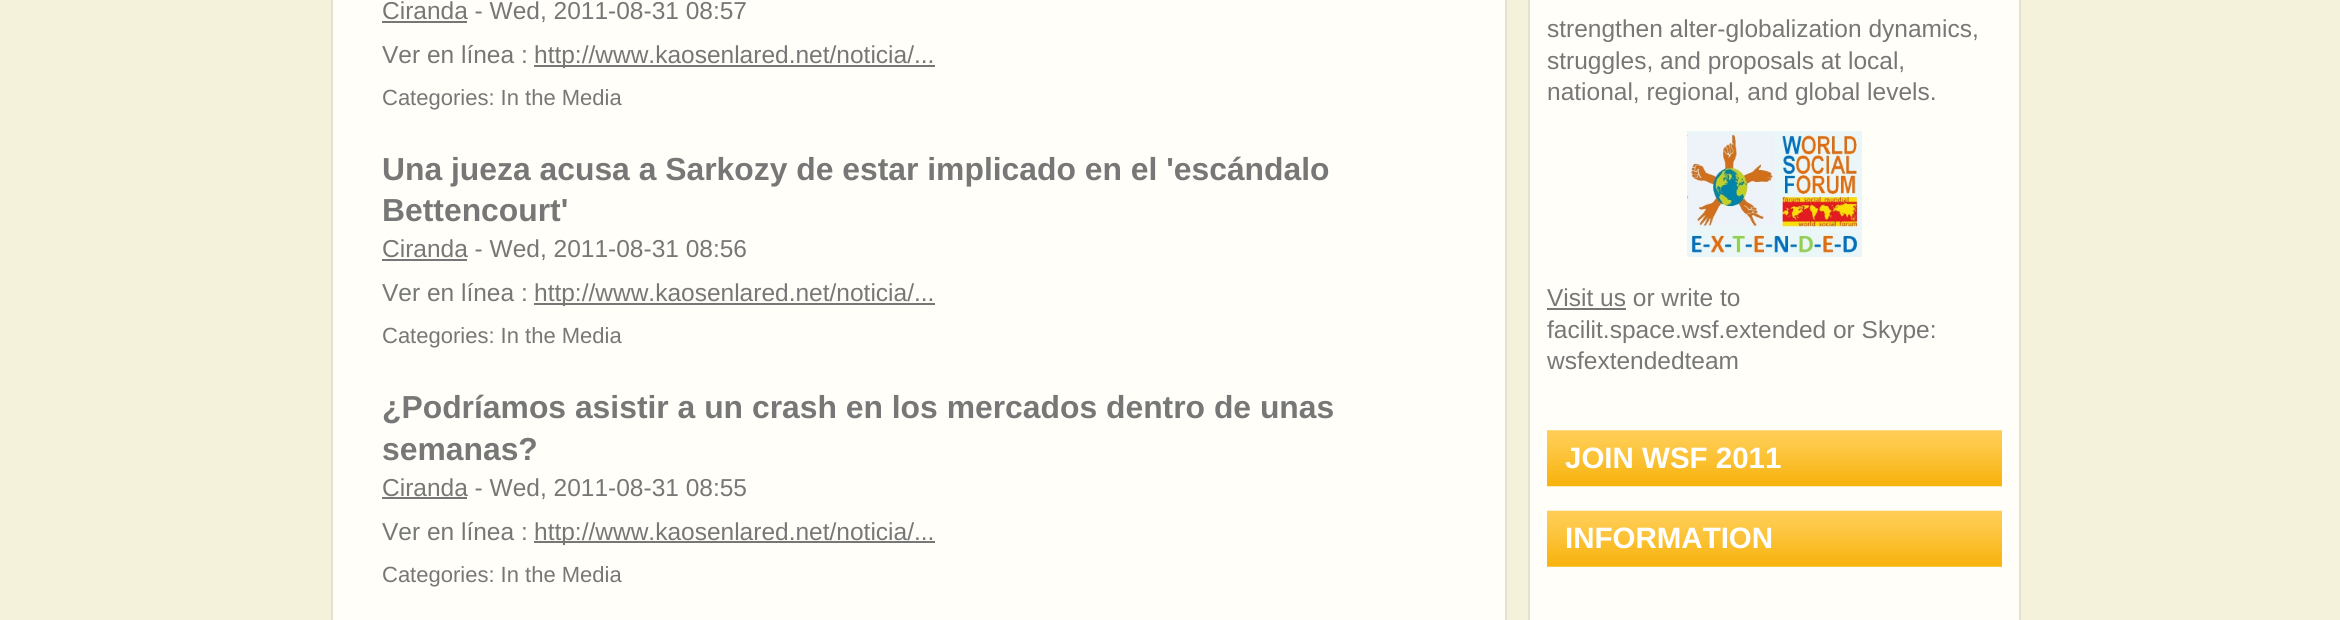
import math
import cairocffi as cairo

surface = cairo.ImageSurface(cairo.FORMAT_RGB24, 2340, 620)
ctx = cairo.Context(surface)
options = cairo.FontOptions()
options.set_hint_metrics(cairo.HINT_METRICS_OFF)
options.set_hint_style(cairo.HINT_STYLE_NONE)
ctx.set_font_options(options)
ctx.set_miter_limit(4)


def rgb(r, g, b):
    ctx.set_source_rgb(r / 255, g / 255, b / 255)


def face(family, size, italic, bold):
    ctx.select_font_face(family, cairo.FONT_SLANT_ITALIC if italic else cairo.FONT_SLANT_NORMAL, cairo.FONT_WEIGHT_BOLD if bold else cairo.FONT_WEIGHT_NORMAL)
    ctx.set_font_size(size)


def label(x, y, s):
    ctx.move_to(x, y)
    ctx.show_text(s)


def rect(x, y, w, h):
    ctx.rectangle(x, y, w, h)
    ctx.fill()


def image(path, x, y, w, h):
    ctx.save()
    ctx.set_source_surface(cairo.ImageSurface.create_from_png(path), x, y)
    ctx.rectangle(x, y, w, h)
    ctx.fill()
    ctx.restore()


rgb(244, 242, 219)
ctx.paint()
rgb(255, 254, 248)
ctx.rectangle(332, -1, 1174, 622)
ctx.fill_preserve()
rgb(228, 226, 206)
ctx.stroke()
rgb(119, 119, 119)
rect(382, 21, 85, 2)
face('Liberation Sans', 24.5, 0, 0)
label(382, 19, 'Ciranda - Wed, 2011-08-31 08:57')
label(382, 63, 'Ver en línea :')
rect(534, 65, 401, 2)
label(534, 63, 'http://www.kaosenlared.net/noticia/...')
face('Liberation Sans', 22, 0, 0)
label(382, 105, 'Categories: In the Media')
face('Liberation Sans', 31.85, 0, 1)
label(382, 180, 'Una jueza acusa a Sarkozy de estar implicado en el \'escándalo')
label(382, 221, 'Bettencourt\'')
rect(382, 259, 85, 2)
face('Liberation Sans', 24.5, 0, 0)
label(382, 257, 'Ciranda - Wed, 2011-08-31 08:56')
label(382, 301, 'Ver en línea :')
rect(534, 303, 401, 2)
label(534, 301, 'http://www.kaosenlared.net/noticia/...')
face('Liberation Sans', 22, 0, 0)
label(382, 343, 'Categories: In the Media')
face('Liberation Sans', 31.85, 0, 1)
label(382, 418, '¿Podríamos asistir a un crash en los mercados dentro de unas')
label(382, 460, 'semanas?')
rect(382, 497, 85, 2)
face('Liberation Sans', 24.5, 0, 0)
label(382, 496, 'Ciranda - Wed, 2011-08-31 08:55')
label(382, 540, 'Ver en línea :')
rect(534, 541, 401, 2)
label(534, 540, 'http://www.kaosenlared.net/noticia/...')
face('Liberation Sans', 22, 0, 0)
label(382, 582, 'Categories: In the Media')
rgb(255, 254, 248)
ctx.rectangle(1529, -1, 491, 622)
ctx.fill_preserve()
rgb(228, 226, 206)
ctx.stroke()
face('Liberation Sans', 24.5, 0, 0)
rgb(119, 119, 119)
label(1547, 37, 'strengthen alter-globalization dynamics,')
label(1547, 69, 'struggles, and proposals at local,')
label(1547, 100, 'national, regional, and global levels.')
image('image0.png', 1687, 131, 175, 126)
label(1547, 306, 'Visit us or write to')
rect(1547, 308, 79, 2)
label(1547, 338, 'facilit.space.wsf.extended or Skype:')
label(1547, 369, 'wsfextendedteam')
image('image1.png', 1547, 430, 455, 57)
face('Liberation Sans', 29.5, 0, 1)
rgb(255, 255, 255)
label(1565, 468, 'JOIN WSF 2011')
image('image2.png', 1547, 510, 455, 57)
label(1565, 548, 'INFORMATION')
surface.write_to_png('render.png')
